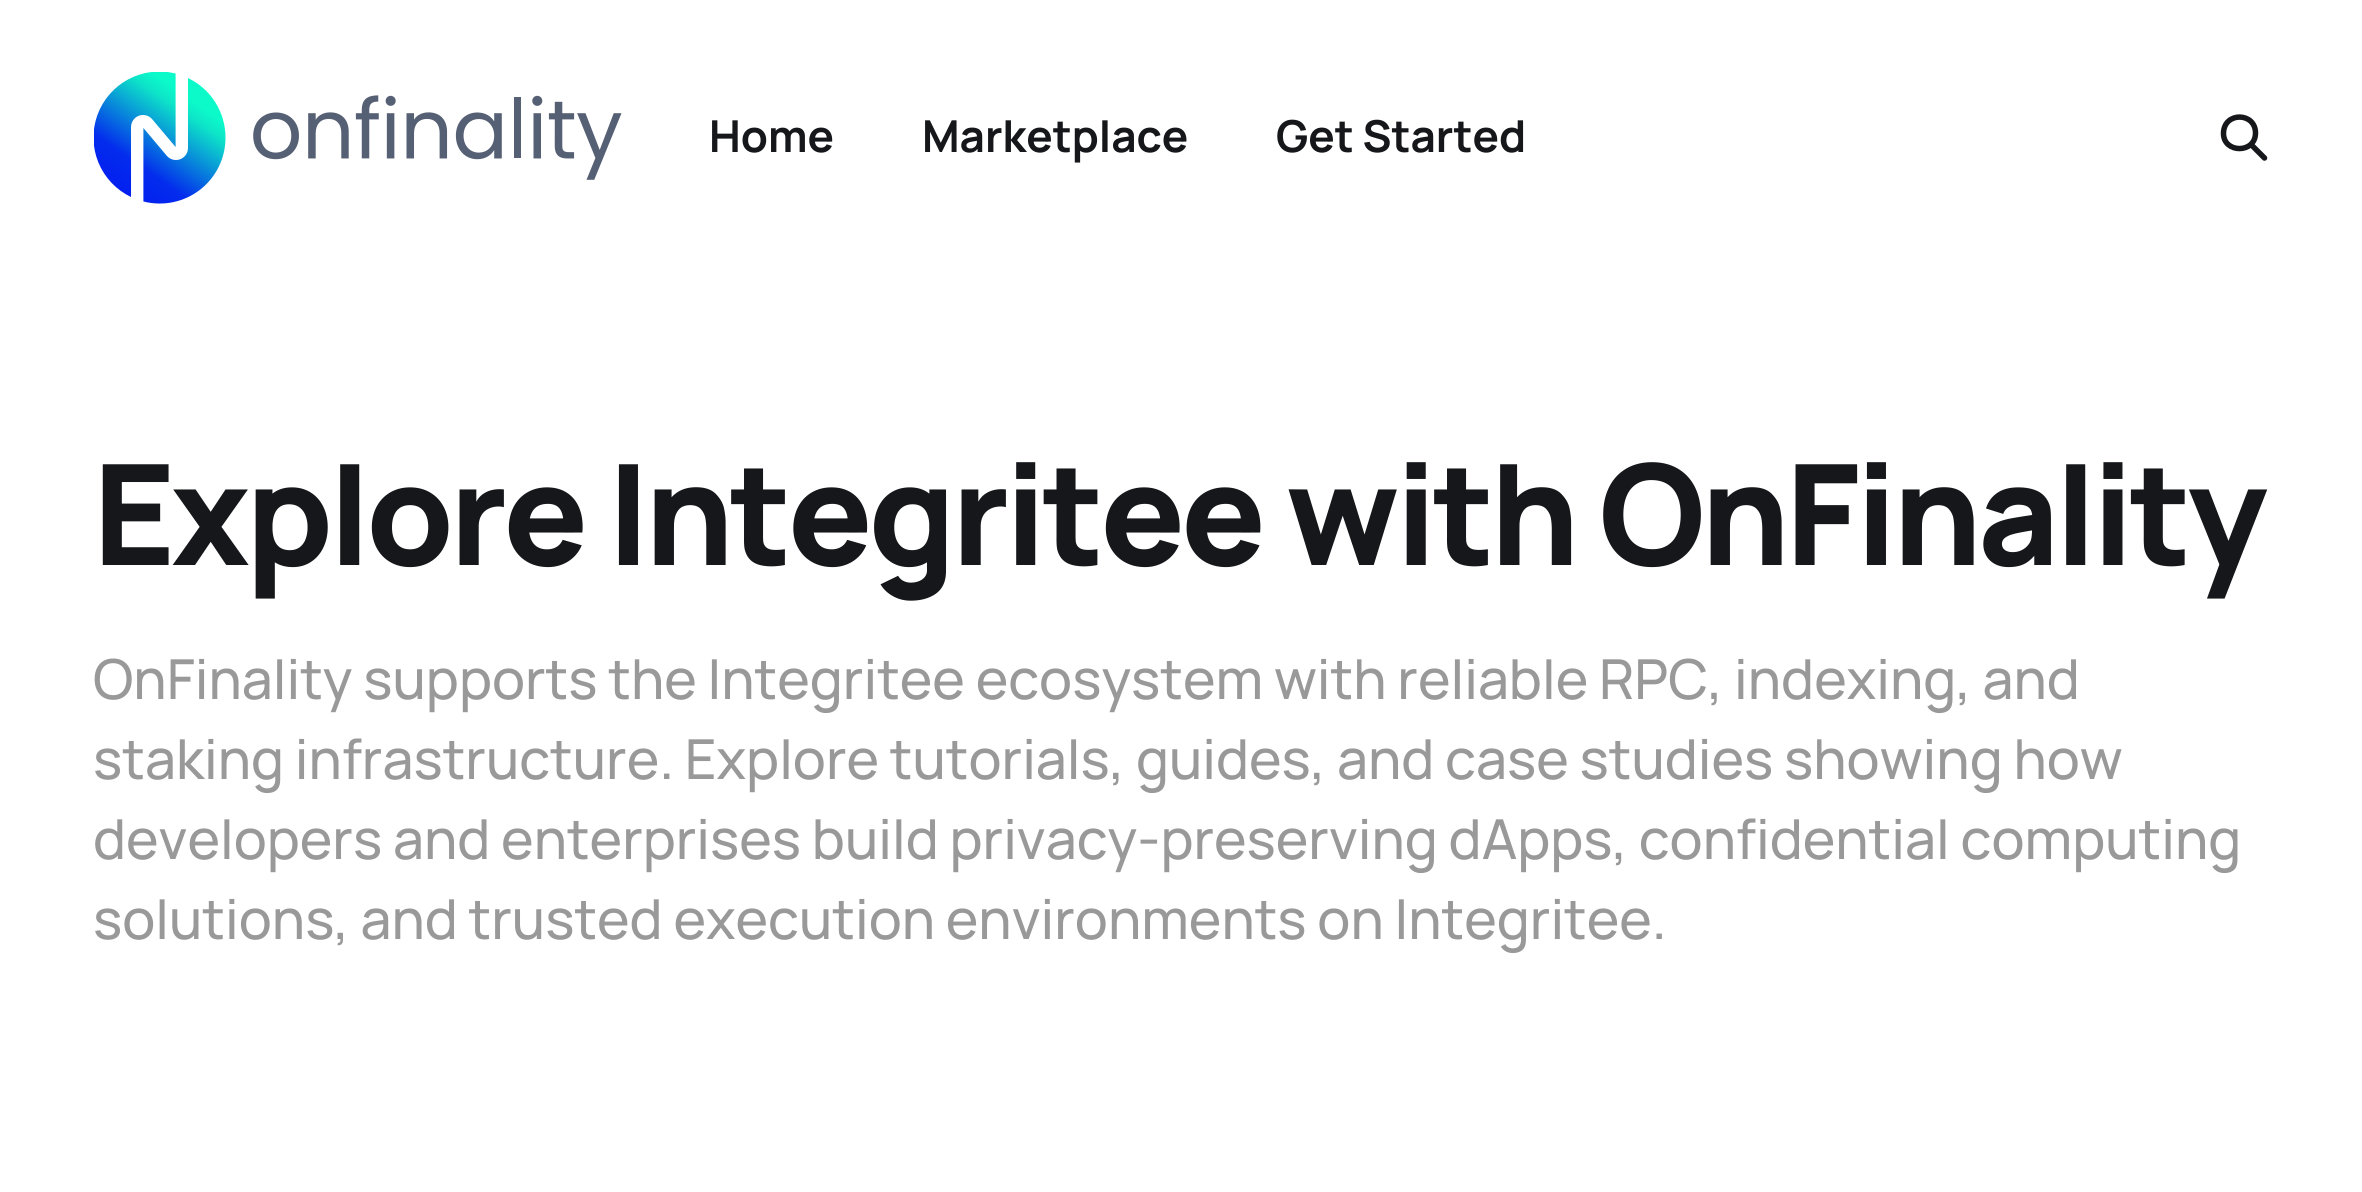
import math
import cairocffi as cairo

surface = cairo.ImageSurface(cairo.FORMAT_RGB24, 2362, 1192)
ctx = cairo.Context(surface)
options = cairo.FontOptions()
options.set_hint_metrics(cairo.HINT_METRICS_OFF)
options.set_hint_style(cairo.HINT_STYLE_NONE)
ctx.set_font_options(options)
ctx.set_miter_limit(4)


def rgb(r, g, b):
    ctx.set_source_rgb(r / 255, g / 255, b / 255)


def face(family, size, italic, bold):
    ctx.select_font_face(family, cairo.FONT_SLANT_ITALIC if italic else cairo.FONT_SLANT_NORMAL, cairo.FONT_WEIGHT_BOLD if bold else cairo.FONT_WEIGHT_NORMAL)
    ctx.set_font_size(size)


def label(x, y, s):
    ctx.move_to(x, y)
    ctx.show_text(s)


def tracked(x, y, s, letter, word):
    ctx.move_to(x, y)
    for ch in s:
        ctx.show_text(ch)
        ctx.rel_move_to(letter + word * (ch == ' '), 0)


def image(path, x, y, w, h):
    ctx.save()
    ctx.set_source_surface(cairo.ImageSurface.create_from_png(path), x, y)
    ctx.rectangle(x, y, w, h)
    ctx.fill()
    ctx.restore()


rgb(255, 255, 255)
ctx.paint()
image('image0.png', 94, 72, 528, 132)
face('Manrope', 44, 0, 1)
rgb(21, 23, 26)
label(709, 152, 'Home')
label(922, 152, 'Marketplace')
label(1276, 152, 'Get Started')
ctx.new_path()
ctx.move_to(2264.5, 158)
ctx.line_to(2251, 144.5)
ctx.close_path()
ctx.move_to(2255.5, 133)
ctx.curve_to(2255.5, 154, 2223, 153.5, 2223.5, 133)
ctx.curve_to(2224, 111.5, 2255.5, 112, 2255.5, 133)
ctx.close_path()
ctx.set_line_width(5.5)
ctx.set_line_cap(cairo.LINE_CAP_ROUND)
ctx.set_line_join(cairo.LINE_JOIN_ROUND)
ctx.stroke()
face('Manrope ExtraBold', 139.9, 0, 0)
tracked(93, 565, 'Explore Integritee with OnFinality', -4.2, 0)
face('Manrope Medium', 55.1, 0, 0)
rgb(153, 153, 153)
tracked(93, 699, 'OnFinality supports the Integritee ecosystem with reliable RPC, indexing, and', 0, -0.25)
tracked(93, 779, 'staking infrastructure. Explore tutorials, guides, and case studies showing how', 0, -0.25)
tracked(93, 859, 'developers and enterprises build privacy-preserving dApps, confidential computing', 0, -0.25)
tracked(93, 939, 'solutions, and trusted execution environments on Integritee.', 0, -0.25)
surface.write_to_png('render.png')
